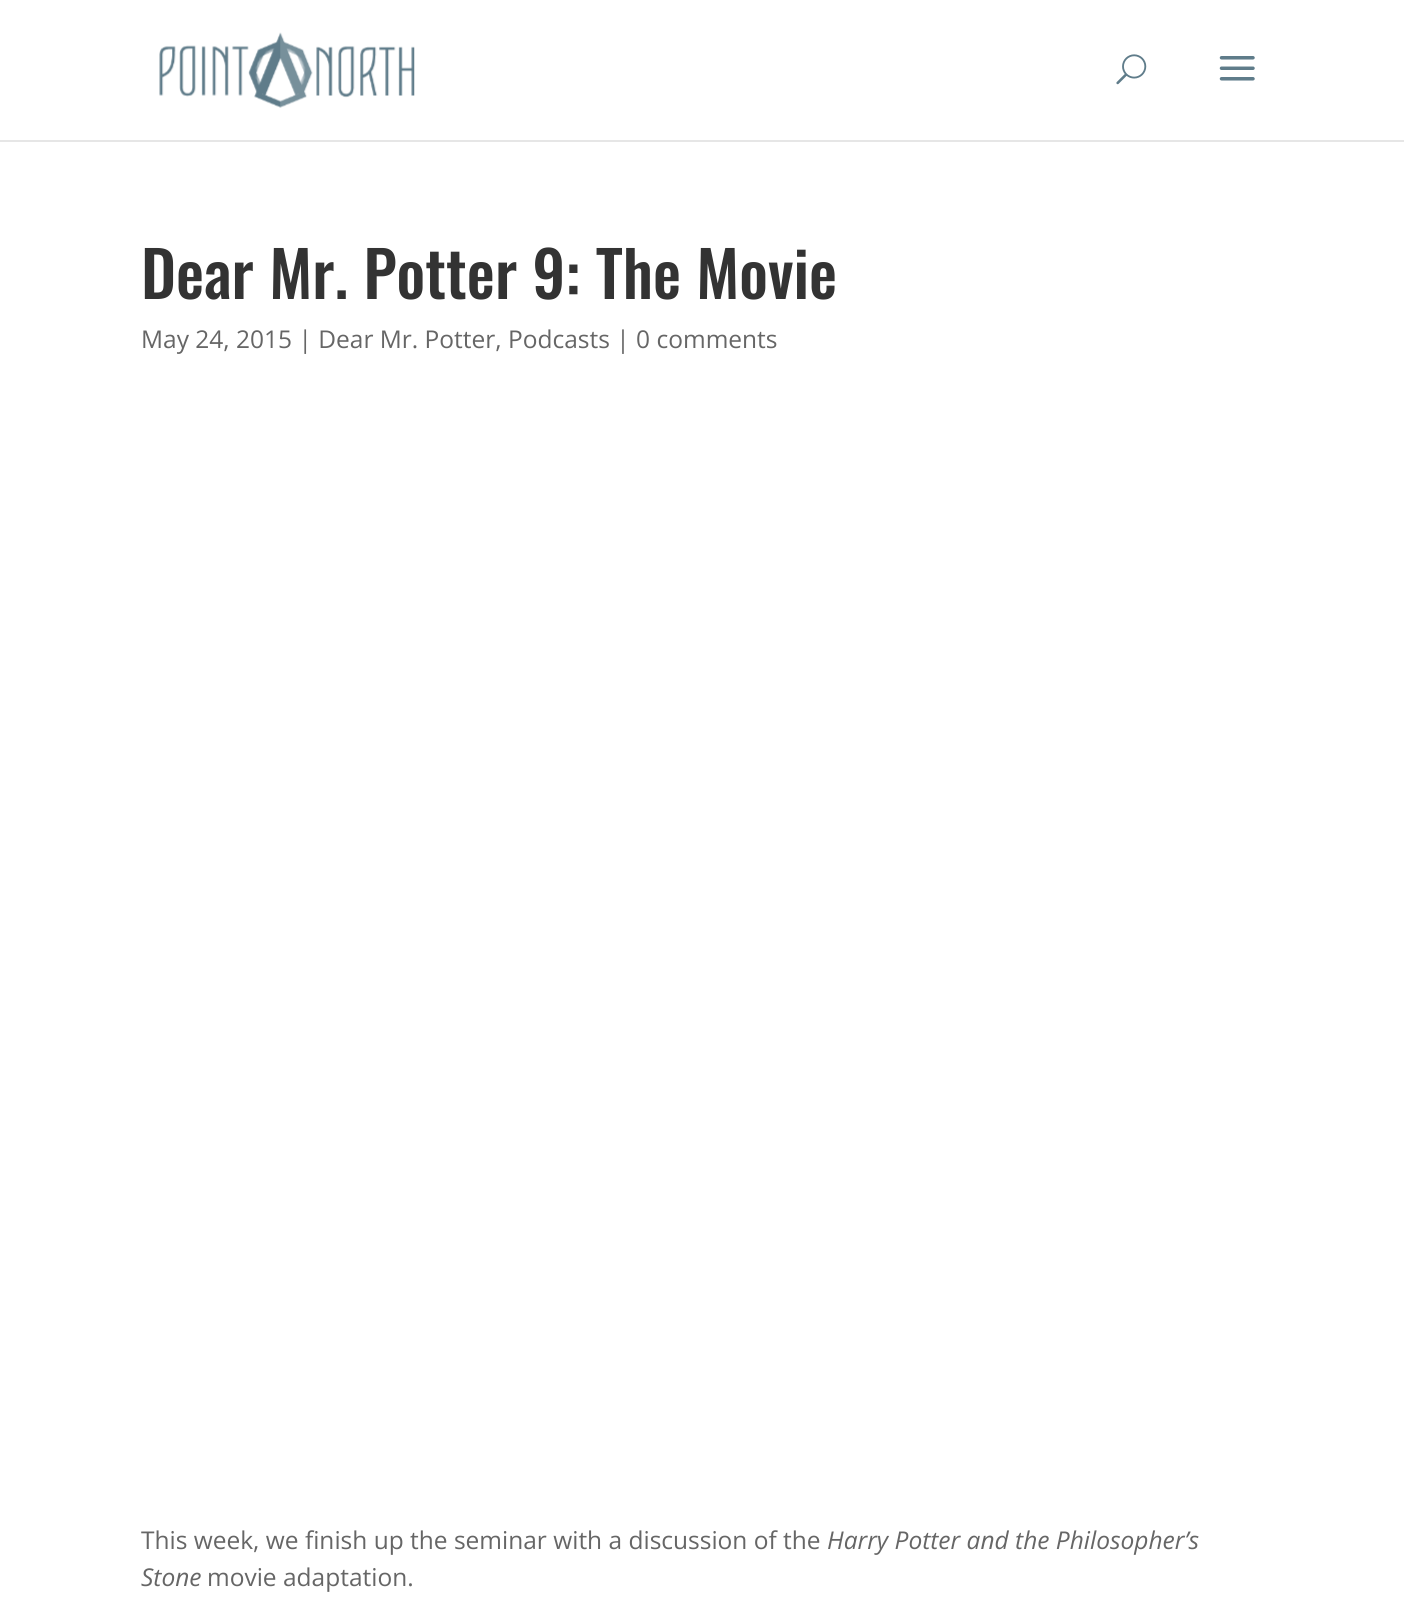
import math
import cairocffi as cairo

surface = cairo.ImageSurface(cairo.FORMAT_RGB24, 1404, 1603)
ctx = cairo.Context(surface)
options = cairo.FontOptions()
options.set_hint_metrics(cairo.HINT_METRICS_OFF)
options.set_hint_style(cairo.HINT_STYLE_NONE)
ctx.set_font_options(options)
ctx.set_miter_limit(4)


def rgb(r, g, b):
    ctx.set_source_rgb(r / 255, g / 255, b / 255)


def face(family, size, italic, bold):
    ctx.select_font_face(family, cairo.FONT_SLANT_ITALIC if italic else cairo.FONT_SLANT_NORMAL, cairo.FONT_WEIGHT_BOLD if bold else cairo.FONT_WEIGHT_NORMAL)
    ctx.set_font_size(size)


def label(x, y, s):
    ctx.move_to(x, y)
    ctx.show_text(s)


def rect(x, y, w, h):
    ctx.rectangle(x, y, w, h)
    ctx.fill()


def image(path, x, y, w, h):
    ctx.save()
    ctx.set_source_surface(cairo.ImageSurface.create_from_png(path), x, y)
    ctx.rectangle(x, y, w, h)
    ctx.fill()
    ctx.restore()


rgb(255, 255, 255)
ctx.paint()
rgb(230, 230, 230)
rect(0, 140, 1404, 2)
image('image0.png', 159, 32, 256, 76)
image('image1.png', 1116, 54, 31, 31)
image('image2.png', 1219, 56, 36, 25)
face('Oswald Medium', 63, 0, 0)
rgb(51, 51, 51)
label(141, 299, 'Dear Mr. Potter 9: The Movie')
face('Open Sans', 24.5, 0, 0)
rgb(102, 102, 102)
label(141, 348, 'May 24, 2015 | Dear Mr. Potter, Podcasts | 0 comments')
label(141, 1549, 'This week, we finish up the seminar with a discussion of the')
face('Open Sans', 24.5, 1, 0)
label(827, 1549, 'Harry Potter and the Philosopher’s')
label(141, 1586, 'Stone')
face('Open Sans', 24.5, 0, 0)
label(207, 1586, 'movie adaptation.')
surface.write_to_png('render.png')
